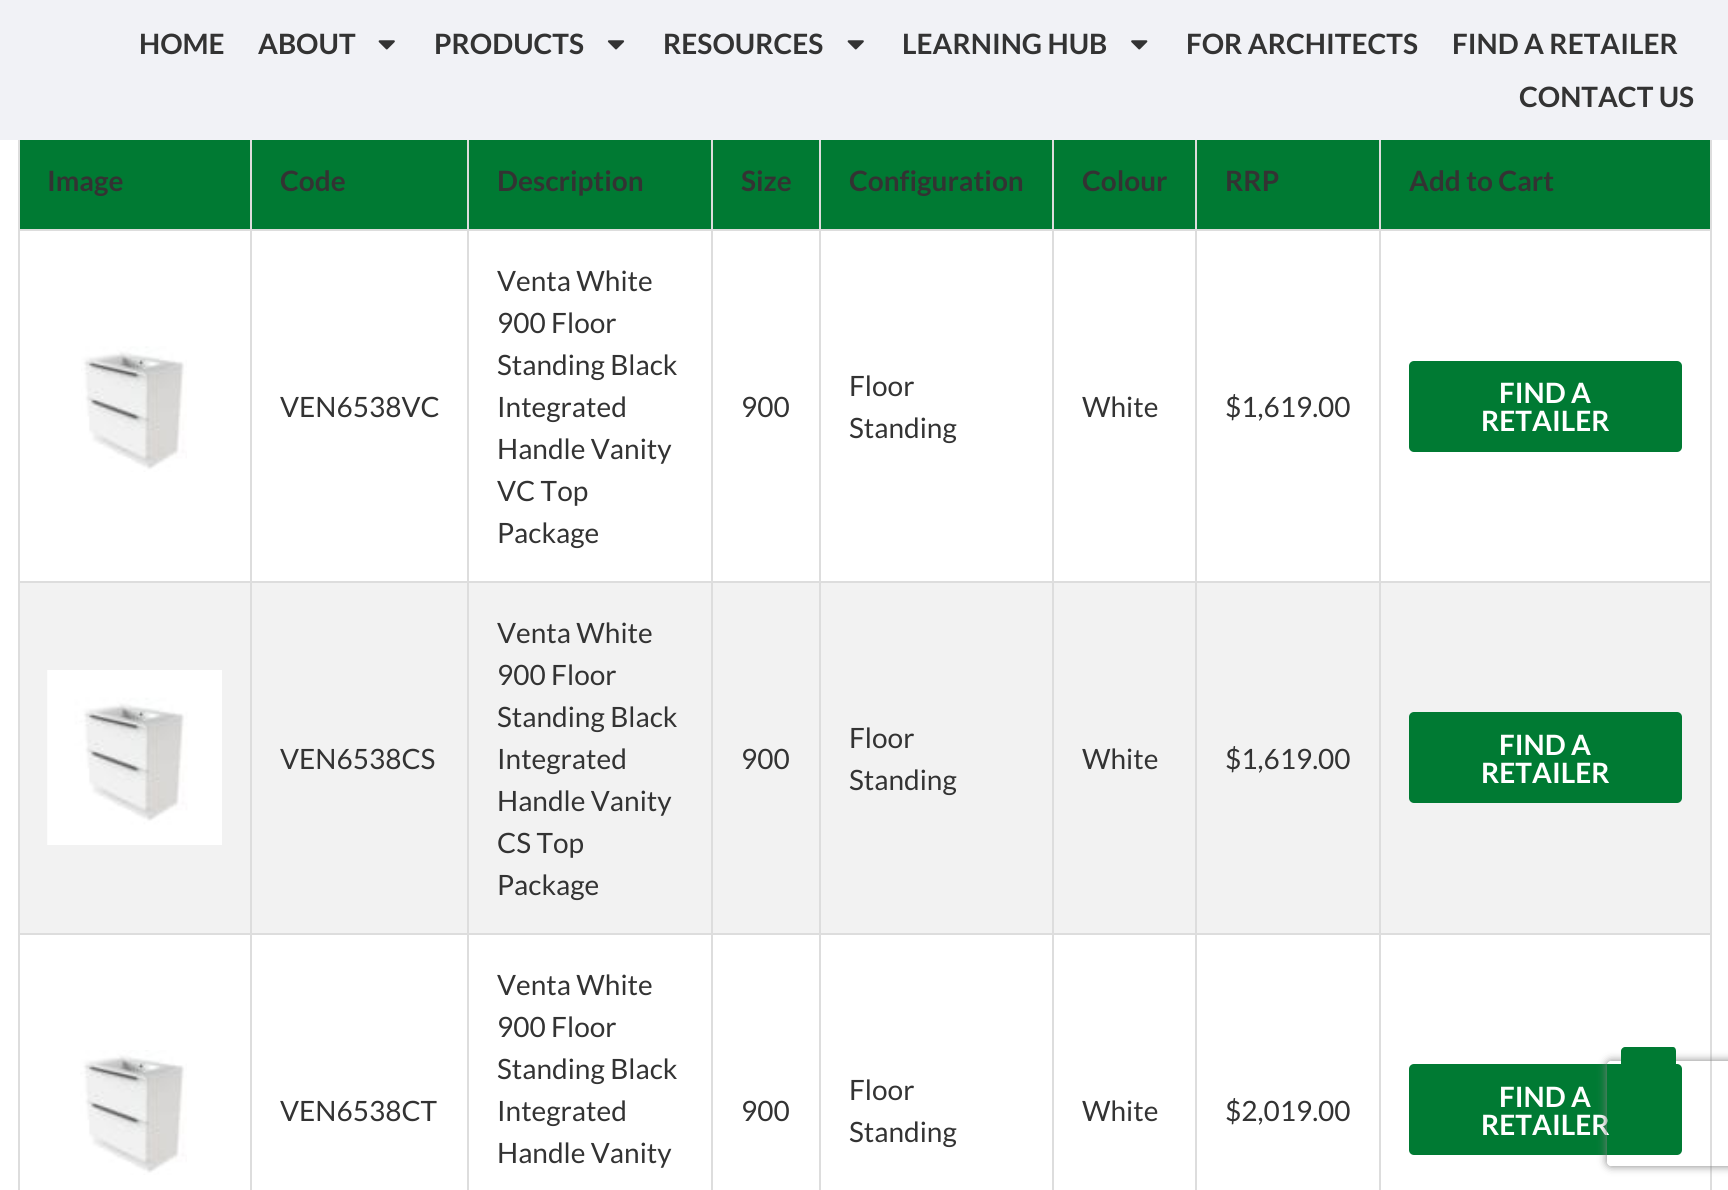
import math
import cairocffi as cairo

surface = cairo.ImageSurface(cairo.FORMAT_RGB24, 1728, 1190)
ctx = cairo.Context(surface)
options = cairo.FontOptions()
options.set_hint_metrics(cairo.HINT_METRICS_OFF)
options.set_hint_style(cairo.HINT_STYLE_NONE)
ctx.set_font_options(options)
ctx.set_miter_limit(4)


def rgb(r, g, b):
    ctx.set_source_rgb(r / 255, g / 255, b / 255)


def face(family, size, italic, bold):
    ctx.select_font_face(family, cairo.FONT_SLANT_ITALIC if italic else cairo.FONT_SLANT_NORMAL, cairo.FONT_WEIGHT_BOLD if bold else cairo.FONT_WEIGHT_NORMAL)
    ctx.set_font_size(size)


def label(x, y, s):
    ctx.move_to(x, y)
    ctx.show_text(s)


def rect(x, y, w, h):
    ctx.rectangle(x, y, w, h)
    ctx.fill()


def rrect(x, y, w, h, r):
    ctx.new_sub_path()
    for i, (u, v) in enumerate([(x + w - r, y + h - r), (x + r, y + h - r), (x + r, y + r), (x + w - r, y + r)]):
        ctx.arc(u, v, r, i * math.pi / 2, (i + 1) * math.pi / 2)
    ctx.close_path()


def soft_shadow(x, y, w, h, r, blur, alpha):
    ctx.push_group_with_content(cairo.CONTENT_ALPHA)
    ctx.set_operator(cairo.OPERATOR_SOURCE)
    for i in range(15, -16, -2):
        e = blur * i / 6
        if min(w, h) + 2 * e > 0:
            ctx.set_source_rgba(0, 0, 0, alpha * math.erfc((i - 1) / 8.5) / 2)
            rrect(x - e, y - e, w + 2 * e, h + 2 * e, max(0, min(r + e + blur * .6, min(w, h) / 2 + e)))
            ctx.fill()
    ctx.mask(ctx.pop_group())


def image(path, x, y, w, h):
    ctx.save()
    ctx.set_source_surface(cairo.ImageSurface.create_from_png(path), x, y)
    ctx.rectangle(x, y, w, h)
    ctx.fill()
    ctx.restore()


rgb(255, 255, 255)
ctx.paint()
rgb(241, 242, 246)
rect(0, 0, 1728, 140)
face('Lato', 28, 0, 1)
rgb(51, 51, 51)
label(139, 54, 'HOME')
label(258, 54, 'ABOUT')
image('image0.png', 378, 40, 17, 10)
label(434, 54, 'PRODUCTS')
image('image1.png', 607, 40, 18, 10)
label(663, 54, 'RESOURCES')
image('image0.png', 847, 40, 17, 10)
label(902, 54, 'LEARNING HUB')
image('image2.png', 1131, 40, 17, 10)
label(1186, 54, 'FOR ARCHITECTS')
label(1452, 54, 'FIND A RETAILER')
label(1519, 107, 'CONTACT US')
rgb(221, 221, 221)
rect(18, 140, 2, 1050)
rgb(0, 122, 51)
rect(20, 140, 1690, 89)
rgb(242, 242, 242)
rect(20, 583, 1690, 350)
rgb(221, 221, 221)
rect(1379, 933, 2, 257)
rect(1710, 140, 2, 1050)
rect(1379, 933, 333, 2)
rect(1379, 581, 2, 354)
rect(1379, 581, 333, 2)
rect(1379, 229, 2, 354)
rect(1379, 229, 333, 2)
rect(1379, 140, 2, 91)
rect(1195, 933, 2, 257)
rect(1195, 933, 186, 2)
rect(1195, 581, 2, 354)
rect(1195, 581, 186, 2)
rect(1195, 229, 2, 354)
rect(1195, 229, 186, 2)
rect(1195, 140, 2, 91)
rect(1052, 933, 2, 257)
rect(1052, 933, 145, 2)
rect(1052, 581, 2, 354)
rect(1052, 581, 145, 2)
rect(1052, 229, 2, 354)
rect(1052, 229, 145, 2)
rect(1052, 140, 2, 91)
rect(819, 933, 2, 257)
rect(819, 933, 235, 2)
rect(819, 581, 2, 354)
rect(819, 581, 235, 2)
rect(819, 229, 2, 354)
rect(819, 229, 235, 2)
rect(819, 140, 2, 91)
rect(711, 933, 2, 257)
rect(711, 933, 110, 2)
rect(711, 581, 2, 354)
rect(711, 581, 110, 2)
rect(711, 229, 2, 354)
rect(711, 229, 110, 2)
rect(711, 140, 2, 91)
rect(467, 933, 2, 257)
rect(467, 933, 245, 2)
rect(467, 581, 2, 354)
rect(467, 581, 245, 2)
rect(467, 229, 2, 354)
rect(467, 229, 245, 2)
rect(467, 140, 2, 91)
rect(250, 933, 2, 257)
rect(250, 933, 219, 2)
rect(250, 581, 2, 354)
rect(250, 581, 219, 2)
rect(250, 229, 2, 354)
rect(250, 229, 219, 2)
rect(250, 140, 2, 91)
rect(19, 229, 233, 2)
rgb(51, 51, 51)
label(47, 191, 'Image')
label(280, 191, 'Code')
label(497, 191, 'Description')
label(741, 191, 'Size')
label(849, 191, 'Configuration')
label(1082, 191, 'Colour')
label(1225, 191, 'RRP')
label(1409, 191, 'Add to Cart')
rgb(221, 221, 221)
rect(19, 581, 233, 2)
image('image3.png', 81, 346, 106, 126)
face('Lato', 28, 0, 0)
rgb(51, 51, 51)
label(280, 417, 'VEN6538VC')
label(497, 291, 'Venta White')
label(497, 333, '900 Floor')
label(497, 375, 'Standing Black')
label(497, 417, 'Integrated')
label(497, 459, 'Handle Vanity')
label(497, 501, 'VC Top')
label(497, 543, 'Package')
label(741, 417, '900')
label(849, 396, 'Floor')
label(849, 438, 'Standing')
label(1082, 417, 'White')
label(1225, 417, '$1,619.00')
rgb(0, 122, 51)
rrect(1409, 361, 273, 91, 5)
ctx.fill()
face('Lato', 28, 0, 1)
rgb(255, 255, 255)
label(1499, 403, 'FIND A')
label(1481, 431, 'RETAILER')
rgb(221, 221, 221)
rect(19, 933, 233, 2)
image('image4.png', 47, 670, 175, 175)
face('Lato', 28, 0, 0)
rgb(51, 51, 51)
label(280, 769, 'VEN6538CS')
label(497, 643, 'Venta White')
label(497, 685, '900 Floor')
label(497, 727, 'Standing Black')
label(497, 769, 'Integrated')
label(497, 811, 'Handle Vanity')
label(497, 853, 'CS Top')
label(497, 895, 'Package')
label(741, 769, '900')
label(849, 748, 'Floor')
label(849, 790, 'Standing')
label(1082, 769, 'White')
label(1225, 769, '$1,619.00')
rgb(0, 122, 51)
rrect(1409, 712, 273, 91, 5)
ctx.fill()
face('Lato', 28, 0, 1)
rgb(255, 255, 255)
label(1499, 755, 'FIND A')
label(1481, 783, 'RETAILER')
image('image5.png', 80, 1050, 107, 125)
face('Lato', 28, 0, 0)
rgb(51, 51, 51)
label(280, 1121, 'VEN6538CT')
label(497, 995, 'Venta White')
label(497, 1037, '900 Floor')
label(497, 1079, 'Standing Black')
label(497, 1121, 'Integrated')
label(497, 1163, 'Handle Vanity')
label(741, 1121, '900')
label(849, 1100, 'Floor')
label(849, 1142, 'Standing')
label(1082, 1121, 'White')
label(1225, 1121, '$2,019.00')
rgb(0, 122, 51)
rrect(1409, 1064, 273, 91, 5)
ctx.fill()
face('Lato', 28, 0, 1)
rgb(255, 255, 255)
label(1499, 1107, 'FIND A')
label(1481, 1135, 'RETAILER')
ctx.save()
ctx.set_fill_rule(cairo.FILL_RULE_EVEN_ODD)
ctx.new_path()
ctx.move_to(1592, 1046)
ctx.line_to(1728, 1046)
ctx.line_to(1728, 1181)
ctx.line_to(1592, 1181)
ctx.close_path()
ctx.move_to(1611, 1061)
ctx.line_to(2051, 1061)
ctx.curve_to(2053, 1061, 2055, 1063, 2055, 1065)
ctx.line_to(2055, 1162)
ctx.curve_to(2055, 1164, 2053, 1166, 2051, 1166)
ctx.line_to(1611, 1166)
ctx.curve_to(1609, 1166, 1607, 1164, 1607, 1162)
ctx.line_to(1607, 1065)
ctx.curve_to(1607, 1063, 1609, 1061, 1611, 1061)
ctx.close_path()
ctx.clip()
rgb(128, 128, 128)
soft_shadow(1607, 1061, 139, 105, 4, 4.5, 1)
ctx.restore()
rgb(0, 122, 51)
ctx.new_path()
ctx.move_to(1673, 1102)
ctx.line_to(1625, 1102)
ctx.curve_to(1623, 1102, 1621, 1101, 1621, 1099)
ctx.line_to(1621, 1051)
ctx.curve_to(1621, 1049, 1623, 1047, 1625, 1047)
ctx.line_to(1673, 1047)
ctx.curve_to(1675, 1047, 1676, 1049, 1676, 1051)
ctx.line_to(1676, 1099)
ctx.curve_to(1676, 1101, 1675, 1102, 1673, 1102)
ctx.close_path()
ctx.fill()
surface.write_to_png('render.png')
